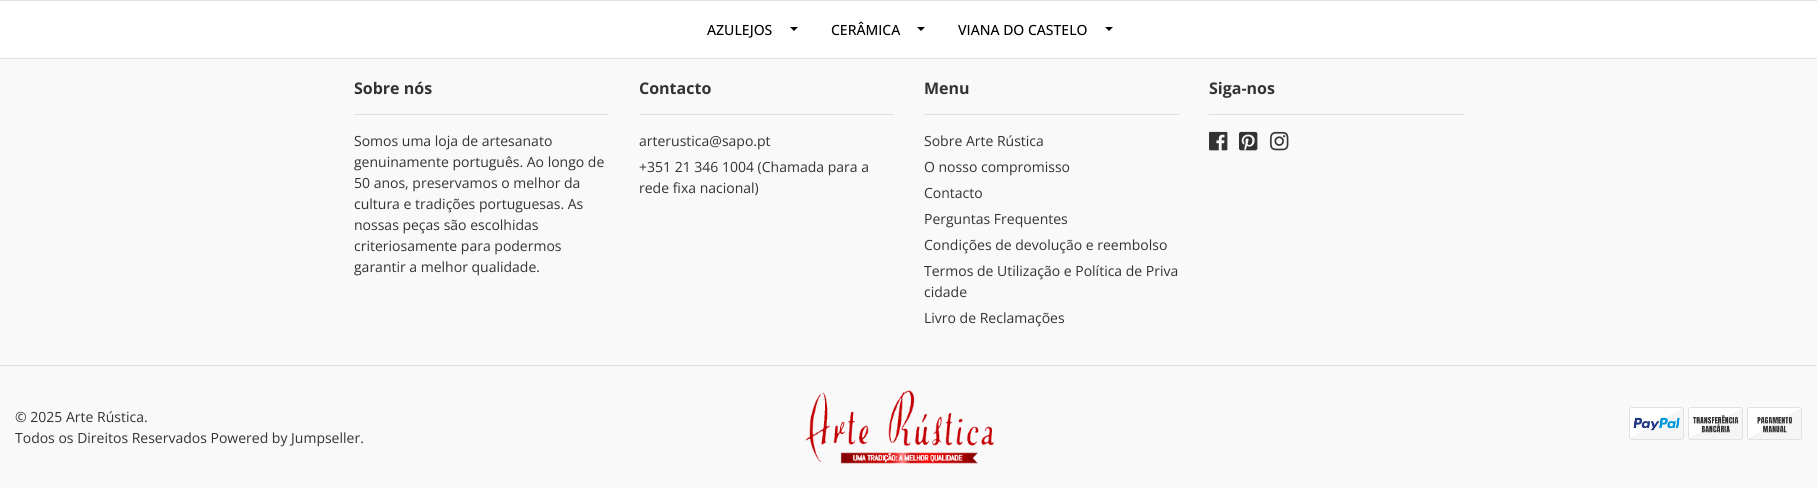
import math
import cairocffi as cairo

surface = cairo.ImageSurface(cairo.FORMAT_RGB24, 1817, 488)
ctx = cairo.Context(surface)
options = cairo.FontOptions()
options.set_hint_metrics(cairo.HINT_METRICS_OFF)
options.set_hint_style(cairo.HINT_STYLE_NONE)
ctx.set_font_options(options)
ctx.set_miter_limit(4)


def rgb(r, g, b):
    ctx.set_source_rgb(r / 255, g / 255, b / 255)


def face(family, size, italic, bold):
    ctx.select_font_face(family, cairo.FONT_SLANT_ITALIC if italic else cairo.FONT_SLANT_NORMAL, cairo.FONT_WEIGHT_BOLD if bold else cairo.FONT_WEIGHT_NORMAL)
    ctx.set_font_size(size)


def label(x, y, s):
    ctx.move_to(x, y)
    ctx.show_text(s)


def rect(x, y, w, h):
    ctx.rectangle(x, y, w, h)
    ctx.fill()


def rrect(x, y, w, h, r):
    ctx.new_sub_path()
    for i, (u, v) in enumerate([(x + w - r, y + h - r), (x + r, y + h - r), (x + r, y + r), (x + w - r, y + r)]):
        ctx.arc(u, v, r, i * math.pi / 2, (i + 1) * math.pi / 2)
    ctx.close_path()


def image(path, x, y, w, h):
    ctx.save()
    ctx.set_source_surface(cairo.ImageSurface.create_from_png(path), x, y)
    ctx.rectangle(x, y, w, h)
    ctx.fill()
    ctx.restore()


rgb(249, 249, 249)
ctx.paint()
rgb(255, 255, 255)
rect(0, 1, 1817, 57)
rgb(225, 225, 225)
rect(0, 0, 1817, 1)
rect(0, 58, 1817, 1)
face('Open Sans Medium', 14, 0, 0)
rgb(0, 0, 0)
label(707, 35, 'AZULEJOS')
ctx.new_path()
ctx.move_to(790, 27)
ctx.line_to(798, 27)
ctx.line_to(794, 31)
ctx.close_path()
ctx.fill()
label(831, 35, 'CERÂMICA')
ctx.new_path()
ctx.move_to(917, 27)
ctx.line_to(925, 27)
ctx.line_to(921, 31)
ctx.close_path()
ctx.fill()
label(958, 35, 'VIANA DO CASTELO')
ctx.new_path()
ctx.move_to(1105, 27)
ctx.line_to(1113, 27)
ctx.line_to(1109, 31)
ctx.close_path()
ctx.fill()
rgb(224, 224, 224)
rect(354, 114, 255, 1)
face('Open Sans', 16, 0, 1)
rgb(51, 51, 51)
label(354, 94, 'Sobre nós')
face('Open Sans', 14, 0, 0)
label(354, 146, 'Somos uma loja de artesanato')
label(354, 167, 'genuinamente português. Ao longo de')
label(354, 188, '50 anos, preservamos o melhor da')
label(354, 209, 'cultura e tradições portuguesas. As')
label(354, 230, 'nossas peças são escolhidas')
label(354, 251, 'criteriosamente para podermos')
label(354, 272, 'garantir a melhor qualidade.')
rgb(224, 224, 224)
rect(639, 114, 255, 1)
face('Open Sans', 16, 0, 1)
rgb(51, 51, 51)
label(639, 94, 'Contacto')
face('Open Sans', 14, 0, 0)
label(639, 146, 'arterustica@sapo.pt')
label(639, 172, '+351 21 346 1004 (Chamada para a')
label(639, 193, 'rede fixa nacional)')
rgb(224, 224, 224)
rect(924, 114, 255, 1)
face('Open Sans', 16, 0, 1)
rgb(51, 51, 51)
label(924, 94, 'Menu')
face('Open Sans', 14, 0, 0)
label(924, 146, 'Sobre Arte Rústica')
label(924, 172, 'O nosso compromisso')
label(924, 198, 'Contacto')
label(924, 224, 'Perguntas Frequentes')
label(924, 250, 'Condições de devolução e reembolso')
label(924, 276, 'Termos de Utilização e Política de Priva')
label(924, 297, 'cidade')
label(924, 323, 'Livro de Reclamações')
rgb(224, 224, 224)
rect(1209, 114, 255, 1)
face('Open Sans', 16, 0, 1)
rgb(51, 51, 51)
label(1209, 94, 'Siga-nos')
image('image0.png', 1209, 131, 19, 20)
image('image1.png', 1239, 131, 19, 20)
image('image2.png', 1270, 131, 19, 20)
rgb(224, 224, 224)
rect(0, 365, 1817, 1)
face('Open Sans', 14, 0, 0)
rgb(51, 51, 51)
label(15, 422, '© 2025 Arte Rústica.')
label(15, 443, 'Todos os Direitos Reservados Powered by Jumpseller.')
image('image3.png', 805, 390, 190, 74)
rgb(245, 245, 245)
rrect(1629.5, 407.5, 54, 32, 2.5)
ctx.fill_preserve()
rgb(225, 225, 225)
ctx.set_line_width(1)
ctx.stroke()
rgb(255, 255, 255)
ctx.new_path()
ctx.move_to(1632, 408)
ctx.line_to(1681, 408)
ctx.curve_to(1682, 408, 1683, 409, 1683, 410)
ctx.line_to(1632, 439)
ctx.curve_to(1631, 439, 1630, 438, 1630, 437)
ctx.line_to(1630, 410)
ctx.curve_to(1630, 409, 1631, 408, 1632, 408)
ctx.close_path()
ctx.fill()
ctx.save()
rrect(1630, 408, 53, 31, 2)
ctx.clip()
ctx.new_path()
ctx.move_to(1648, 315)
ctx.line_to(1697.5, 400.5)
ctx.line_to(1611.5, 450)
ctx.line_to(1562, 364.5)
ctx.close_path()
rgb(238, 238, 238)
ctx.stroke()
ctx.restore()
image('image4.png', 1633, 417, 47, 14)
rgb(245, 245, 245)
rrect(1688.5, 407.5, 54, 32, 2.5)
ctx.fill_preserve()
rgb(225, 225, 225)
ctx.stroke()
rgb(255, 255, 255)
ctx.new_path()
ctx.move_to(1691, 408)
ctx.line_to(1740, 408)
ctx.curve_to(1741, 408, 1742, 409, 1742, 410)
ctx.line_to(1691, 439)
ctx.curve_to(1690, 439, 1689, 438, 1689, 437)
ctx.line_to(1689, 410)
ctx.curve_to(1689, 409, 1690, 408, 1691, 408)
ctx.close_path()
ctx.fill()
ctx.save()
rrect(1689, 408, 53, 31, 2)
ctx.clip()
ctx.new_path()
ctx.move_to(1707, 315)
ctx.line_to(1756.5, 400.5)
ctx.line_to(1670.5, 450)
ctx.line_to(1621, 364.5)
ctx.close_path()
rgb(238, 238, 238)
ctx.stroke()
ctx.restore()
image('image5.png', 1693, 415, 46, 18)
rgb(245, 245, 245)
rrect(1747.5, 407.5, 54, 32, 2.5)
ctx.fill_preserve()
rgb(225, 225, 225)
ctx.stroke()
rgb(255, 255, 255)
ctx.new_path()
ctx.move_to(1750, 408)
ctx.line_to(1799, 408)
ctx.curve_to(1800, 408, 1801, 409, 1801, 410)
ctx.line_to(1750, 439)
ctx.curve_to(1749, 439, 1748, 438, 1748, 437)
ctx.line_to(1748, 410)
ctx.curve_to(1748, 409, 1749, 408, 1750, 408)
ctx.close_path()
ctx.fill()
ctx.save()
rrect(1748, 408, 53, 31, 2)
ctx.clip()
ctx.new_path()
ctx.move_to(1766, 315)
ctx.line_to(1815.5, 400.5)
ctx.line_to(1730, 450)
ctx.line_to(1680.5, 364.5)
ctx.close_path()
rgb(238, 238, 238)
ctx.stroke()
ctx.restore()
image('image6.png', 1757, 416, 35, 17)
surface.write_to_png('render.png')
